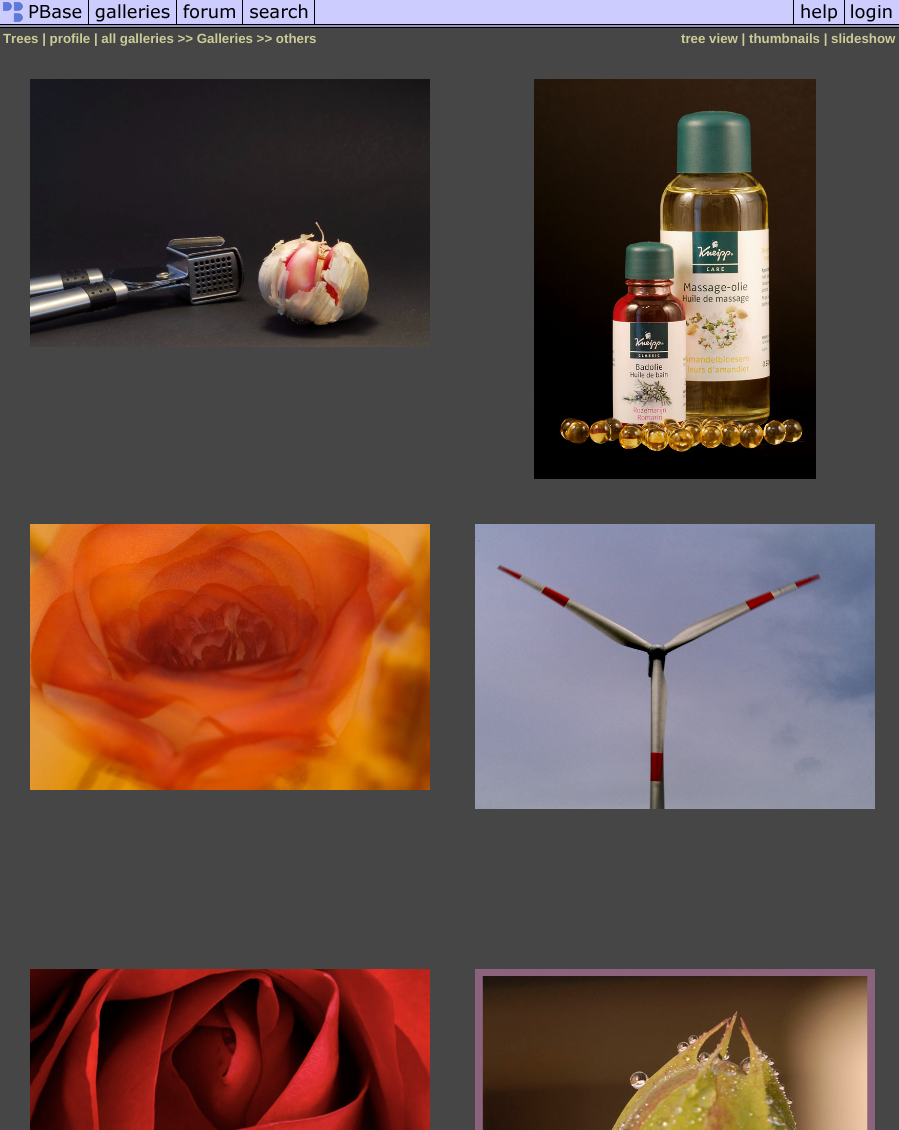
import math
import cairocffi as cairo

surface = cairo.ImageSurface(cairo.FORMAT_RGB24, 899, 1130)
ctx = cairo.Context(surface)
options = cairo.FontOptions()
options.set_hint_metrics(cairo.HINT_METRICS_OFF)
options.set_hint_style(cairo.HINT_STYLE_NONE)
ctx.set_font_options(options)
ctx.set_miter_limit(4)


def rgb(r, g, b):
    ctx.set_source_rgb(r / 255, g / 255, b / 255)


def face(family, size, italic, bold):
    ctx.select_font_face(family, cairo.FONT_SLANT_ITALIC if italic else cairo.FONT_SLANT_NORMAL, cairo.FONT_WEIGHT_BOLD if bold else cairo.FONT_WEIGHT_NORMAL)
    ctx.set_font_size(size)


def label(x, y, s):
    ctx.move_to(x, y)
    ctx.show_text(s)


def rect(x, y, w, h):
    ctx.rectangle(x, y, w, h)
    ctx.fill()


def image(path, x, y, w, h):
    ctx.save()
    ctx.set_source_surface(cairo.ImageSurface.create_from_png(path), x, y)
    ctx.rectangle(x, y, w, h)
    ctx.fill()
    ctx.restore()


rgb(70, 70, 70)
ctx.paint()
image('image0.png', 0, 0, 89, 28)
image('image1.png', 89, 0, 88, 28)
image('image2.png', 177, 0, 66, 28)
image('image3.png', 243, 0, 72, 28)
image('image4.png', 315, 0, 478, 28)
image('image5.png', 793, 0, 52, 28)
image('image6.png', 845, 0, 54, 28)
face('Liberation Sans', 13.3, 0, 1)
rgb(204, 204, 153)
label(3, 43, 'Trees | profile | all galleries >> Galleries >> others')
label(681, 43, 'tree view | thumbnails | slideshow')
image('image7.png', 30, 79, 400, 268)
image('image8.png', 534, 79, 282, 377)
rgb(0, 0, 0)
rect(534, 456, 282, 23)
image('image9.png', 30, 524, 400, 266)
image('image10.png', 475, 524, 400, 285)
image('image11.png', 30, 969, 400, 161)
image('image12.png', 475, 969, 400, 161)
surface.write_to_png('render.png')
